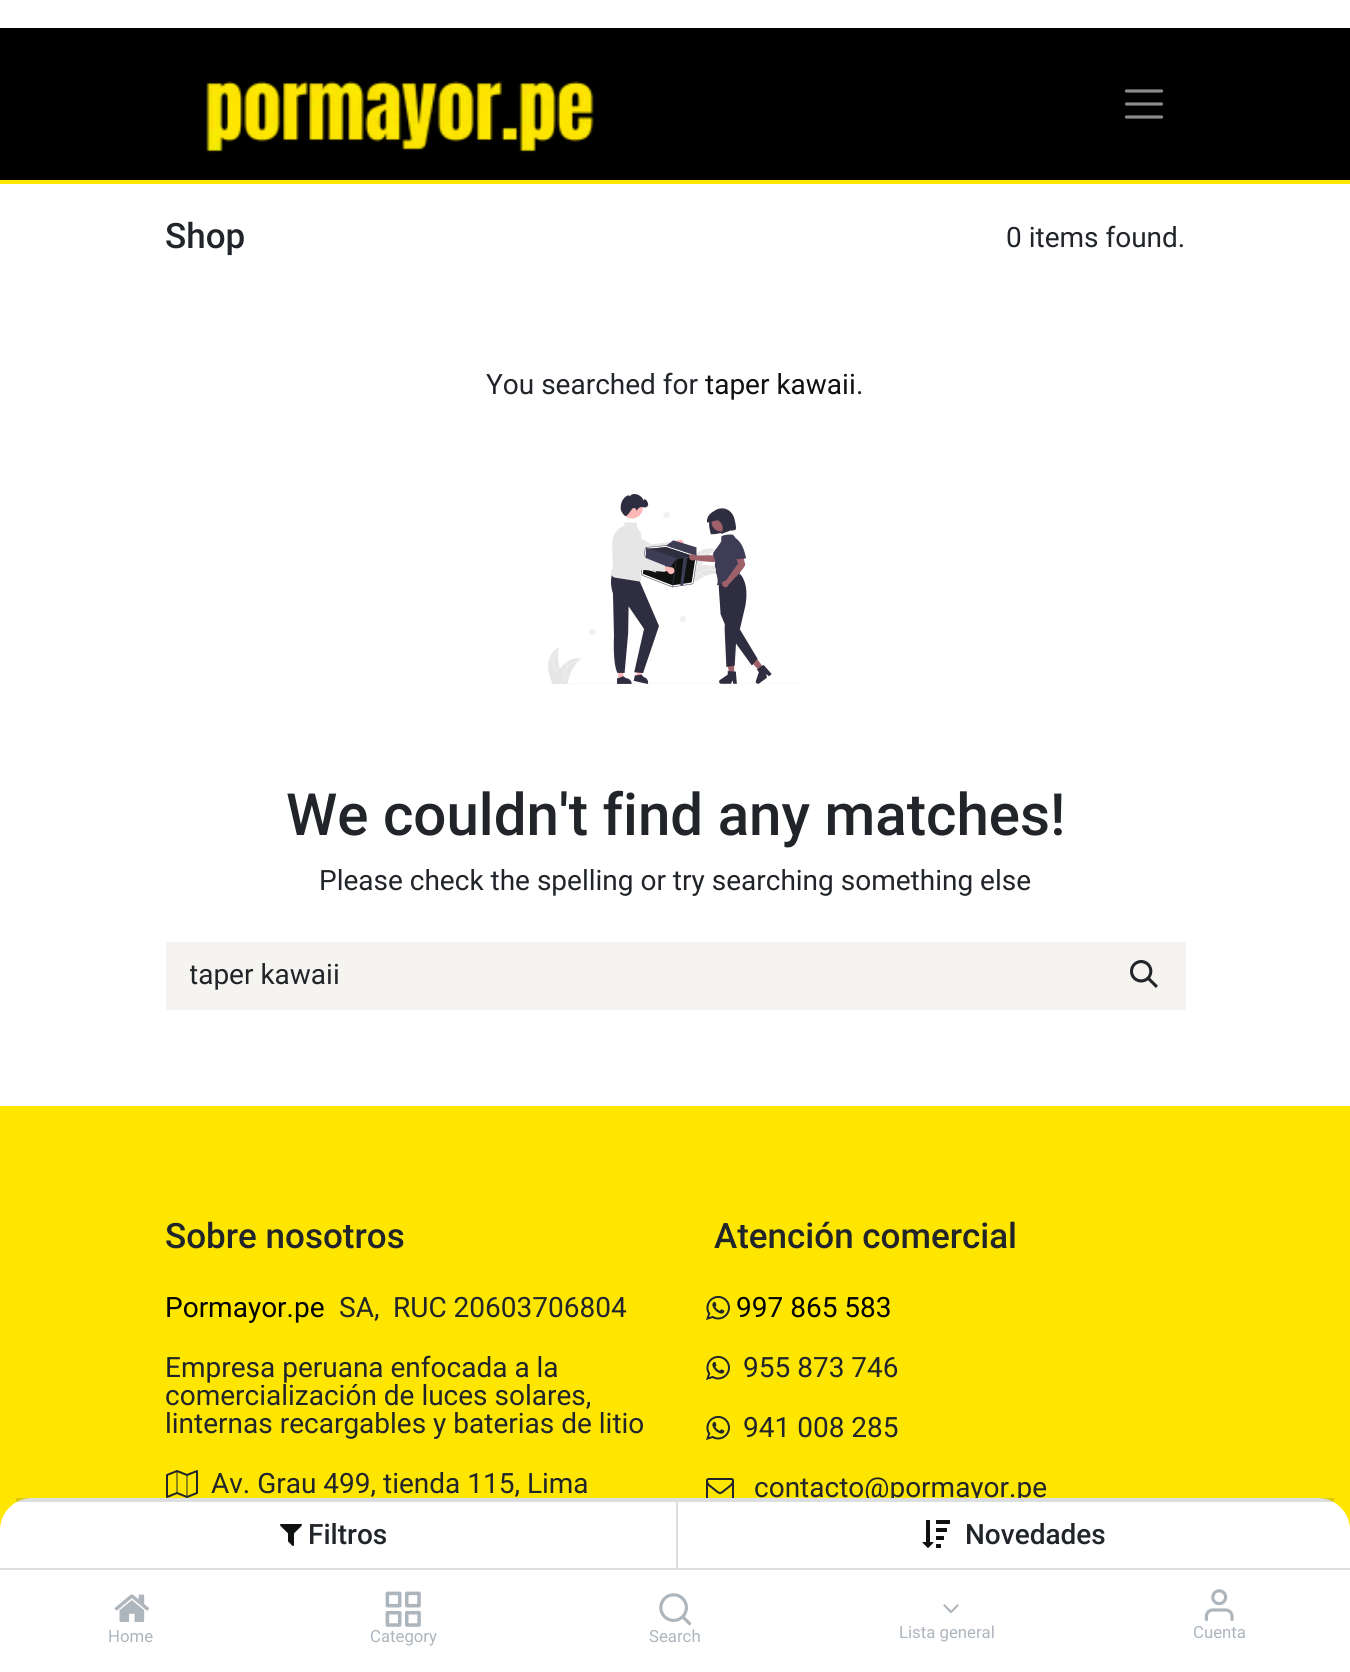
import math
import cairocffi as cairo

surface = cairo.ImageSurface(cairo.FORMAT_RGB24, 1350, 1672)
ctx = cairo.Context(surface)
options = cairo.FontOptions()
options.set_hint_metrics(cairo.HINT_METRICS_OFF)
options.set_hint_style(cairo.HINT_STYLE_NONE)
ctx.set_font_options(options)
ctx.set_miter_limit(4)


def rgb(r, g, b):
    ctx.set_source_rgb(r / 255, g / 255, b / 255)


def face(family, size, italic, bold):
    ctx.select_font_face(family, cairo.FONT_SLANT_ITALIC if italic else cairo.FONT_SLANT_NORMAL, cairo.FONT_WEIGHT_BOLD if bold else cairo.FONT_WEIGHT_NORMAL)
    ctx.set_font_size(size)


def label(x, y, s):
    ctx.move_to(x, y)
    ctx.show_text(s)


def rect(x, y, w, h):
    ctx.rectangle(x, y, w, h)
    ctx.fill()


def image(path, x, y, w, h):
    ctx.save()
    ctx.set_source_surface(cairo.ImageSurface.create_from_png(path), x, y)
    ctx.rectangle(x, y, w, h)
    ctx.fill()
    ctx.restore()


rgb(255, 255, 255)
ctx.paint()
rgb(0, 0, 0)
rect(0, 28, 1350, 152)
rgb(255, 230, 0)
rect(0, 180, 1350, 4)
image('image0.png', 206, 81, 388, 72)
ctx.new_path()
ctx.move_to(1126.5, 91)
ctx.line_to(1161.5, 91)
ctx.move_to(1126.5, 104)
ctx.line_to(1161.5, 104)
ctx.move_to(1126.5, 117)
ctx.line_to(1161.5, 117)
rgb(140, 140, 140)
ctx.set_line_width(3.2)
ctx.set_line_cap(cairo.LINE_CAP_ROUND)
ctx.stroke()
face('Roboto Medium', 35, 0, 0)
rgb(33, 37, 41)
label(165, 248, 'Shop')
face('Roboto', 28, 0, 0)
label(1006, 247, '0 items found.')
label(486, 394, 'You searched for')
rgb(15, 17, 16)
label(705, 394, 'taper kawaii')
rgb(33, 37, 41)
label(856, 394, '.')
image('image1.png', 548, 494, 254, 190)
face('Roboto Medium', 58.25, 0, 0)
label(286, 835, 'We couldn\'t find any matches!')
face('Roboto', 28, 0, 0)
label(319, 890, 'Please check the spelling or try searching something else')
rgb(245, 244, 240)
rect(166, 942, 1020, 68)
ctx.save()
ctx.rectangle(190, 956, 842, 40)
ctx.clip()
rgb(33, 37, 41)
label(189, 984, 'taper kawaii')
ctx.restore()
image('image2.png', 1130, 960, 28, 28)
rgb(255, 230, 0)
rect(0, 1106, 1350, 424)
face('Roboto Medium', 35, 0, 0)
rgb(33, 37, 41)
label(165, 1248, 'Sobre nosotros')
face('Roboto', 28, 0, 0)
rgb(0, 0, 0)
label(165, 1317, 'Pormayor.pe')
rgb(33, 37, 41)
label(339, 1317, 'SA,')
label(393, 1317, 'RUC 20603706804')
label(165, 1377, 'Empresa peruana enfocada a la')
label(165, 1405, 'comercialización de luces solares,')
label(165, 1433, 'linternas recargables y baterias de litio')
image('image3.png', 166, 1470, 32, 28)
label(211, 1493, 'Av. Grau 499, tienda 115, Lima')
face('Roboto Medium', 35, 0, 0)
label(714, 1248, 'Atención comercial')
image('image4.png', 706, 1295, 24, 25)
face('Roboto', 28, 0, 0)
rgb(0, 0, 0)
label(736, 1317, '997 865 583')
image('image4.png', 706, 1355, 24, 25)
rgb(33, 37, 41)
label(743, 1377, '955 873 746')
image('image4.png', 706, 1415, 24, 25)
label(743, 1437, '941 008 285')
image('image5.png', 706, 1478, 28, 20)
label(754, 1497, 'contacto@pormayor.pe')
rgb(255, 255, 255)
ctx.new_path()
ctx.move_to(32, 1498)
ctx.line_to(1318, 1498)
ctx.curve_to(1335.5, 1498, 1350, 1512.5, 1350, 1530)
ctx.line_to(1350, 1672)
ctx.line_to(0, 1672)
ctx.line_to(0, 1530)
ctx.curve_to(0, 1512.5, 14.5, 1498, 32, 1498)
ctx.close_path()
ctx.fill()
ctx.set_source_rgba(0.129, 0.145, 0.161, 0.15)
rect(16, 1498, 1318, 4)
rgb(222, 222, 223)
rect(0, 1568, 1350, 2)
image('image6.png', 280, 1524, 22, 22)
face('Roboto Medium', 28, 0, 0)
rgb(33, 37, 41)
label(308, 1544, 'Filtros')
rgb(222, 222, 223)
rect(676, 1502, 2, 66)
image('image7.png', 922, 1520, 28, 28)
rgb(33, 37, 41)
label(965, 1544, 'Novedades')
image('image8.png', 114, 1594, 35, 28)
face('Roboto', 16.75, 0, 0)
rgb(173, 181, 189)
label(108, 1642, 'Home')
image('image9.png', 385, 1591, 36, 36)
label(370, 1642, 'Category')
image('image10.png', 659, 1593, 33, 33)
label(649, 1642, 'Search')
image('image11.png', 943, 1604, 16, 10)
label(899, 1638, 'Lista general')
image('image12.png', 1204, 1589, 30, 33)
label(1193, 1638, 'Cuenta')
surface.write_to_png('render.png')
